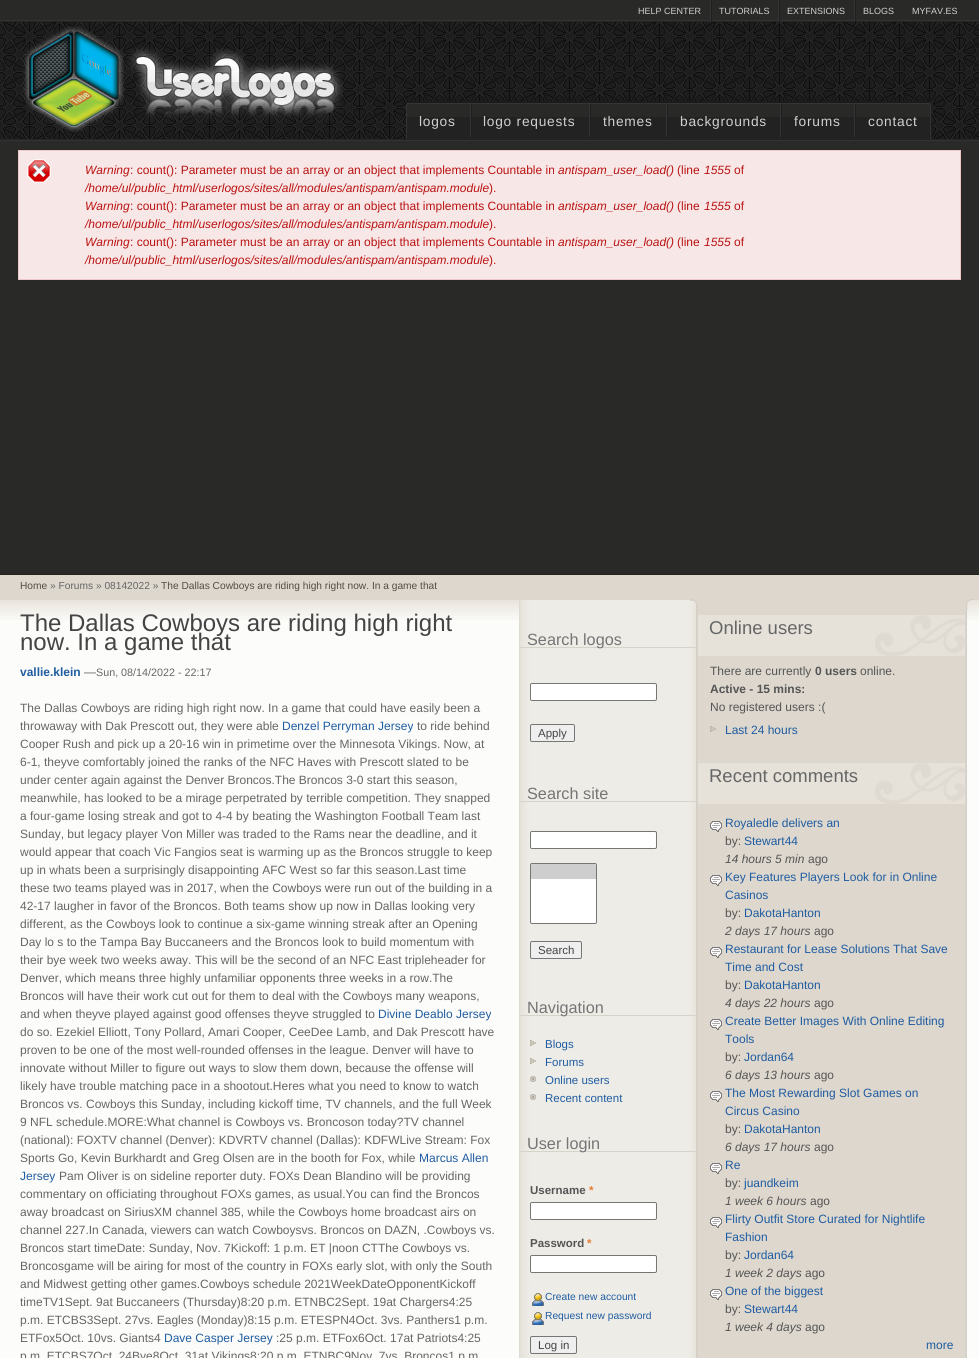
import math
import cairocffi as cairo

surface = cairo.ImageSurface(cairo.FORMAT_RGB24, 979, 1358)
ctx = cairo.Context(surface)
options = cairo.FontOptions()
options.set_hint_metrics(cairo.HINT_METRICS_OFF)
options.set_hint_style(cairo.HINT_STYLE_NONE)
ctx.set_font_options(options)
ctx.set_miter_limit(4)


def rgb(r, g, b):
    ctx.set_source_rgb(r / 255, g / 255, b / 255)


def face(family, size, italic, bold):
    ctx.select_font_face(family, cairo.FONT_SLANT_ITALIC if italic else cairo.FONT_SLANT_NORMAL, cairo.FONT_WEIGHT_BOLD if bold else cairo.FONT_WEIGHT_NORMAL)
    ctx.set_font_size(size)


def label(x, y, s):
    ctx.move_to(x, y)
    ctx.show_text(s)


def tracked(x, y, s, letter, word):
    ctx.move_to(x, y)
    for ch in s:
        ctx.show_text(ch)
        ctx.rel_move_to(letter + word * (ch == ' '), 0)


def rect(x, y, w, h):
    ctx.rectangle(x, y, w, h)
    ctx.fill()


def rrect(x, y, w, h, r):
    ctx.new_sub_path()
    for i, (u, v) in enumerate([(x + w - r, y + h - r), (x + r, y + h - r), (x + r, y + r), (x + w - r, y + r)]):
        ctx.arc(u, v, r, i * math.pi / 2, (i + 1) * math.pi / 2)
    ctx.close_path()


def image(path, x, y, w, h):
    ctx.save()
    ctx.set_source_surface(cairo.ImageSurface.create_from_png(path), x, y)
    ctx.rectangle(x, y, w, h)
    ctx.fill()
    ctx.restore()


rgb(252, 252, 250)
ctx.paint()
image('image0.png', 0, 22, 979, 117)
rgb(41, 41, 40)
rect(0, 0, 979, 20)
image('image1.png', 0, 20, 979, 2)
face('Liberation Sans', 9, 0, 0)
rgb(208, 208, 208)
label(638, 14, 'HELP CENTER')
image('image2.png', 710, 0, 2, 21)
label(719, 14, 'TUTORIALS')
image('image2.png', 778, 0, 2, 21)
label(787, 14, 'EXTENSIONS')
image('image2.png', 854, 0, 2, 21)
label(863, 14, 'BLOGS')
label(912, 14, 'MYFAV.ES')
image('image3.png', 23, 26, 320, 106)
image('image4.png', 406, 101, 525, 38)
image('image5.png', 406, 103, 1, 36)
face('Liberation Sans', 13.75, 0, 0)
tracked(419, 126, 'logos', 0.75, 0)
image('image6.png', 470, 104, 2, 33)
tracked(483, 126, 'logo requests', 0.75, 0)
image('image6.png', 589, 104, 2, 33)
tracked(603, 126, 'themes', 0.75, 0)
image('image6.png', 666, 104, 2, 33)
tracked(680, 126, 'backgrounds', 0.75, 0)
image('image6.png', 780, 104, 2, 33)
tracked(794, 126, 'forums', 0.75, 0)
image('image6.png', 854, 104, 2, 33)
image('image5.png', 930, 103, 1, 36)
tracked(868, 126, 'contact', 0.75, 0)
rgb(41, 41, 40)
rect(0, 141, 979, 433)
image('image7.png', 0, 139, 979, 2)
rgb(35, 35, 35)
rect(0, 574, 979, 1)
rgb(248, 231, 231)
rect(19, 151, 941, 128)
image('image8.png', 27, 159, 24, 24)
ctx.rectangle(18.5, 150.5, 942, 129)
rgb(237, 200, 200)
ctx.set_line_width(1)
ctx.stroke()
face('Liberation Sans', 12, 1, 0)
rgb(186, 18, 18)
label(85, 174, 'Warning')
face('Liberation Sans', 12, 0, 0)
label(130, 174, ': count(): Parameter must be an array or an object that implements Countable in')
face('Liberation Sans', 12, 1, 0)
label(558, 174, 'antispam_user_load()')
face('Liberation Sans', 12, 0, 0)
label(677, 174, '(line')
face('Liberation Sans', 12, 1, 0)
label(704, 174, '1555')
face('Liberation Sans', 12, 0, 0)
label(734, 174, 'of')
face('Liberation Sans', 12, 1, 0)
label(85, 192, '/home/ul/public_html/userlogos/sites/all/modules/antispam/antispam.module')
face('Liberation Sans', 12, 0, 0)
label(489, 192, ').')
face('Liberation Sans', 12, 1, 0)
label(85, 210, 'Warning')
face('Liberation Sans', 12, 0, 0)
label(130, 210, ': count(): Parameter must be an array or an object that implements Countable in')
face('Liberation Sans', 12, 1, 0)
label(558, 210, 'antispam_user_load()')
face('Liberation Sans', 12, 0, 0)
label(677, 210, '(line')
face('Liberation Sans', 12, 1, 0)
label(704, 210, '1555')
face('Liberation Sans', 12, 0, 0)
label(734, 210, 'of')
face('Liberation Sans', 12, 1, 0)
label(85, 228, '/home/ul/public_html/userlogos/sites/all/modules/antispam/antispam.module')
face('Liberation Sans', 12, 0, 0)
label(489, 228, ').')
face('Liberation Sans', 12, 1, 0)
label(85, 246, 'Warning')
face('Liberation Sans', 12, 0, 0)
label(130, 246, ': count(): Parameter must be an array or an object that implements Countable in')
face('Liberation Sans', 12, 1, 0)
label(558, 246, 'antispam_user_load()')
face('Liberation Sans', 12, 0, 0)
label(677, 246, '(line')
face('Liberation Sans', 12, 1, 0)
label(704, 246, '1555')
face('Liberation Sans', 12, 0, 0)
label(734, 246, 'of')
face('Liberation Sans', 12, 1, 0)
label(85, 264, '/home/ul/public_html/userlogos/sites/all/modules/antispam/antispam.module')
face('Liberation Sans', 12, 0, 0)
label(489, 264, ').')
rgb(221, 215, 205)
rect(0, 575, 979, 25)
face('Liberation Sans', 10.2, 0, 0)
rgb(82, 78, 70)
label(20, 589, 'Home')
rgb(102, 102, 102)
label(50, 589, '» Forums » 08142022 »')
rgb(82, 78, 70)
label(161, 589, 'The Dallas Cowboys are riding high right now. In a game that')
image('image9.png', 0, 600, 979, 20)
image('image10.png', 519, 600, 448, 758)
image('image11.png', 690, 599, 285, 10)
face('Liberation Sans', 24, 0, 0)
rgb(68, 68, 68)
label(20, 631, 'The Dallas Cowboys are riding high right')
label(20, 650, 'now. In a game that')
face('Liberation Sans', 12, 0, 1)
rgb(31, 92, 161)
label(20, 676, 'vallie.klein')
face('Liberation Sans', 12, 0, 0)
rgb(102, 102, 102)
label(84, 676, '—')
face('Liberation Sans', 10.75, 0, 0)
label(96, 676, 'Sun, 08/14/2022 - 22:17')
face('Liberation Sans', 12, 0, 0)
label(20, 712, 'The Dallas Cowboys are riding high right now. In a game that could have easily been a')
label(20, 730, 'throwaway with Dak Prescott out, they were able')
rgb(31, 92, 161)
label(282, 730, 'Denzel Perryman Jersey')
rgb(102, 102, 102)
label(417, 730, 'to ride behind')
label(20, 748, 'Cooper Rush and pick up a 20-16 win in primetime over the Minnesota Vikings. Now, at')
label(20, 766, '6-1, theyve comfortably joined the ranks of the NFC Haves with Prescott slated to be')
label(20, 784, 'under center again against the Denver Broncos.The Broncos 3-0 start this season,')
label(20, 802, 'meanwhile, has looked to be a mirage perpetrated by terrible competition. They snapped')
label(20, 820, 'a four-game losing streak and got to 4-4 by beating the Washington Football Team last')
label(20, 838, 'Sunday, but legacy player Von Miller was traded to the Rams near the deadline, and it')
label(20, 856, 'would appear that coach Vic Fangios seat is warming up as the Broncos struggle to keep')
label(20, 874, 'up in whats been a surprisingly disappointing AFC West so far this season.Last time')
label(20, 892, 'these two teams played was in 2017, when the Cowboys were run out of the building in a')
label(20, 910, '42-17 laugher in favor of the Broncos. Both teams show up now in Dallas looking very')
label(20, 928, 'different, as the Cowboys look to continue a six-game winning streak after an Opening')
label(20, 946, 'Day lo s to the Tampa Bay Buccaneers and the Broncos look to build momentum with')
label(20, 964, 'their bye week two weeks away. This will be the second of an NFC East tripleheader for')
label(20, 982, 'Denver, which means three highly unfamiliar opponents three weeks in a row.The')
label(20, 1000, 'Broncos will have their work cut out for them to deal with the Cowboys many weapons,')
label(20, 1018, 'and when theyve played against good offenses theyve struggled to')
rgb(31, 92, 161)
label(378, 1018, 'Divine Deablo Jersey')
rgb(102, 102, 102)
label(20, 1036, 'do so. Ezekiel Elliott, Tony Pollard, Amari Cooper, CeeDee Lamb, and Dak Prescott have')
label(20, 1054, 'proven to be one of the most well-rounded offenses in the league. Denver will have to')
label(20, 1072, 'innovate without Miller to figure out ways to slow them down, because the offense will')
label(20, 1090, 'likely have trouble matching pace in a shootout.Heres what you need to know to watch')
label(20, 1108, 'Broncos vs. Cowboys this Sunday, including kickoff time, TV channels, and the full Week')
label(20, 1126, '9 NFL schedule.MORE:What channel is Cowboys vs. Broncoson today?TV channel')
label(20, 1144, '(national): FOXTV channel (Denver): KDVRTV channel (Dallas): KDFWLive Stream: Fox')
label(20, 1162, 'Sports Go, Kevin Burkhardt and Greg Olsen are in the booth for Fox, while')
rgb(31, 92, 161)
label(419, 1162, 'Marcus Allen')
label(20, 1180, 'Jersey')
rgb(102, 102, 102)
label(59, 1180, 'Pam Oliver is on sideline reporter duty. FOXs Dean Blandino will be providing')
label(20, 1198, 'commentary on officiating throughout FOXs games, as usual.You can find the Broncos')
label(20, 1216, 'away broadcast on SiriusXM channel 385, while the Cowboys home broadcast airs on')
label(20, 1234, 'channel 227.In Canada, viewers can watch Cowboysvs. Broncos on DAZN, .Cowboys vs.')
label(20, 1252, 'Broncos start timeDate: Sunday, Nov. 7Kickoff: 1 p.m. ET |noon CTThe Cowboys vs.')
label(20, 1270, 'Broncosgame will be airing for most of the country in FOXs early slot, with only the South')
label(20, 1288, 'and Midwest getting other games.Cowboys schedule 2021WeekDateOpponentKickoff')
label(20, 1306, 'timeTV1Sept. 9at Buccaneers (Thursday)8:20 p.m. ETNBC2Sept. 19at Chargers4:25')
label(20, 1324, 'p.m. ETCBS3Sept. 27vs. Eagles (Monday)8:15 p.m. ETESPN4Oct. 3vs. Panthers1 p.m.')
label(20, 1342, 'ETFox5Oct. 10vs. Giants4')
rgb(31, 92, 161)
label(164, 1342, 'Dave Casper Jersey')
rgb(102, 102, 102)
label(276, 1342, ':25 p.m. ETFox6Oct. 17at Patriots4:25')
label(20, 1360, 'p.m. ETCBS7Oct. 24Bye8Oct. 31at Vikings8:20 p.m. ETNBC9Nov. 7vs. Broncos1 p.m')
rgb(215, 211, 202)
rect(519, 647, 177, 1)
face('Liberation Sans', 16.25, 0, 0)
rgb(117, 117, 117)
label(527, 645, 'Search logos')
rgb(255, 255, 255)
rrect(530.5, 683.5, 126, 17, 1.5)
ctx.fill_preserve()
rgb(118, 118, 118)
ctx.stroke()
rgb(239, 239, 239)
rrect(530.5, 724.5, 44, 17, 1.5)
ctx.fill_preserve()
rgb(118, 118, 118)
ctx.stroke()
face('Liberation Sans', 11.5, 0, 0)
rgb(68, 68, 68)
label(538, 737, 'Apply')
rgb(215, 211, 202)
rect(519, 801, 177, 1)
face('Liberation Sans', 16.25, 0, 0)
rgb(117, 117, 117)
label(527, 799, 'Search site')
rgb(255, 255, 255)
rrect(530.5, 831.5, 126, 17, 1.5)
ctx.fill_preserve()
rgb(118, 118, 118)
ctx.stroke()
rgb(255, 255, 255)
rrect(530.5, 863.5, 66, 60, 1.5)
ctx.fill_preserve()
rgb(118, 118, 118)
ctx.stroke()
rgb(206, 206, 206)
ctx.new_path()
ctx.move_to(532, 864)
ctx.line_to(595, 864)
ctx.curve_to(595.5, 864, 596, 864.5, 596, 865)
ctx.line_to(596, 879)
ctx.line_to(531, 879)
ctx.line_to(531, 865)
ctx.curve_to(531, 864.5, 531.5, 864, 532, 864)
ctx.close_path()
ctx.fill()
rgb(239, 239, 239)
rrect(530.5, 941.5, 51, 17, 1.5)
ctx.fill_preserve()
rgb(118, 118, 118)
ctx.stroke()
face('Liberation Sans', 11.5, 0, 0)
rgb(68, 68, 68)
label(538, 954, 'Search')
rgb(215, 211, 202)
rect(519, 1015, 177, 1)
face('Liberation Sans', 16.25, 0, 0)
rgb(117, 117, 117)
label(527, 1013, 'Navigation')
image('image12.png', 530, 1040, 6, 6)
face('Liberation Sans', 11.5, 0, 0)
rgb(31, 92, 161)
label(545, 1048, 'Blogs')
image('image12.png', 530, 1058, 6, 6)
label(545, 1066, 'Forums')
image('image13.png', 530, 1076, 6, 6)
label(545, 1084, 'Online users')
image('image13.png', 530, 1094, 6, 6)
label(545, 1102, 'Recent content')
rgb(215, 211, 202)
rect(519, 1151, 177, 1)
face('Liberation Sans', 16.25, 0, 0)
rgb(117, 117, 117)
label(527, 1149, 'User login')
face('Liberation Sans', 11.5, 0, 1)
rgb(85, 85, 85)
label(530, 1194, 'Username')
rgb(232, 120, 48)
label(589, 1194, '*')
rgb(255, 255, 255)
rrect(530.5, 1202.5, 126, 17, 1.5)
ctx.fill_preserve()
rgb(118, 118, 118)
ctx.stroke()
rgb(85, 85, 85)
label(530, 1247, 'Password')
rgb(232, 120, 48)
label(587, 1247, '*')
rgb(255, 255, 255)
rrect(530.5, 1255.5, 126, 17, 1.5)
ctx.fill_preserve()
rgb(118, 118, 118)
ctx.stroke()
image('image14.png', 532, 1293, 12, 13)
face('Liberation Sans', 10.25, 0, 0)
rgb(31, 92, 161)
label(545, 1300, 'Create new account')
image('image14.png', 532, 1312, 12, 13)
label(545, 1319, 'Request new password')
rgb(239, 239, 239)
rrect(530.5, 1336.5, 46, 17, 1.5)
ctx.fill_preserve()
rgb(118, 118, 118)
ctx.stroke()
face('Liberation Sans', 11.5, 0, 0)
rgb(68, 68, 68)
label(538, 1349, 'Log in')
rgb(230, 226, 218)
rect(698, 615, 177, 41)
image('image15.png', 875, 615, 90, 41)
face('Liberation Sans', 18.5, 0, 0)
rgb(102, 102, 102)
label(709, 634, 'Online users')
face('Liberation Sans', 12, 0, 0)
rgb(85, 85, 85)
label(710, 675, 'There are currently')
face('Liberation Sans', 12, 0, 1)
label(815, 675, '0 users')
face('Liberation Sans', 12, 0, 0)
label(860, 675, 'online.')
face('Liberation Sans', 12, 0, 1)
label(710, 693, 'Active - 15 mins:')
face('Liberation Sans', 12, 0, 0)
label(710, 711, 'No registered users :(')
image('image16.png', 710, 726, 6, 6)
rgb(31, 92, 161)
label(725, 734, 'Last 24 hours')
rgb(230, 226, 218)
rect(698, 763, 177, 41)
image('image15.png', 875, 763, 90, 41)
face('Liberation Sans', 18.5, 0, 0)
rgb(102, 102, 102)
label(709, 782, 'Recent comments')
image('image17.png', 710, 821, 12, 11)
face('Liberation Sans', 12, 0, 0)
rgb(31, 92, 161)
label(725, 827, 'Royaledle delivers an')
rgb(85, 85, 85)
label(725, 845, 'by:')
rgb(31, 92, 161)
label(744, 845, 'Stewart44')
face('Liberation Sans', 12, 1, 0)
rgb(85, 85, 85)
label(725, 863, '14 hours 5 min')
face('Liberation Sans', 12, 0, 0)
label(808, 863, 'ago')
image('image17.png', 710, 875, 12, 11)
rgb(31, 92, 161)
label(725, 881, 'Key Features Players Look for in Online')
label(725, 899, 'Casinos')
rgb(85, 85, 85)
label(725, 917, 'by:')
rgb(31, 92, 161)
label(744, 917, 'DakotaHanton')
face('Liberation Sans', 12, 1, 0)
rgb(85, 85, 85)
label(725, 935, '2 days 17 hours')
face('Liberation Sans', 12, 0, 0)
label(814, 935, 'ago')
image('image17.png', 710, 947, 12, 11)
rgb(31, 92, 161)
label(725, 953, 'Restaurant for Lease Solutions That Save')
label(725, 971, 'Time and Cost')
rgb(85, 85, 85)
label(725, 989, 'by:')
rgb(31, 92, 161)
label(744, 989, 'DakotaHanton')
face('Liberation Sans', 12, 1, 0)
rgb(85, 85, 85)
label(725, 1007, '4 days 22 hours')
face('Liberation Sans', 12, 0, 0)
label(814, 1007, 'ago')
image('image17.png', 710, 1019, 12, 11)
rgb(31, 92, 161)
label(725, 1025, 'Create Better Images With Online Editing')
label(725, 1043, 'Tools')
rgb(85, 85, 85)
label(725, 1061, 'by:')
rgb(31, 92, 161)
label(744, 1061, 'Jordan64')
face('Liberation Sans', 12, 1, 0)
rgb(85, 85, 85)
label(725, 1079, '6 days 13 hours')
face('Liberation Sans', 12, 0, 0)
label(814, 1079, 'ago')
image('image17.png', 710, 1091, 12, 11)
rgb(31, 92, 161)
label(725, 1097, 'The Most Rewarding Slot Games on')
label(725, 1115, 'Circus Casino')
rgb(85, 85, 85)
label(725, 1133, 'by:')
rgb(31, 92, 161)
label(744, 1133, 'DakotaHanton')
face('Liberation Sans', 12, 1, 0)
rgb(85, 85, 85)
label(725, 1151, '6 days 17 hours')
face('Liberation Sans', 12, 0, 0)
label(814, 1151, 'ago')
image('image17.png', 710, 1163, 12, 11)
rgb(31, 92, 161)
label(725, 1169, 'Re')
rgb(85, 85, 85)
label(725, 1187, 'by:')
rgb(31, 92, 161)
label(744, 1187, 'juandkeim')
face('Liberation Sans', 12, 1, 0)
rgb(85, 85, 85)
label(725, 1205, '1 week 6 hours')
face('Liberation Sans', 12, 0, 0)
label(810, 1205, 'ago')
image('image17.png', 710, 1217, 12, 11)
rgb(31, 92, 161)
label(725, 1223, 'Flirty Outfit Store Curated for Nightlife')
label(725, 1241, 'Fashion')
rgb(85, 85, 85)
label(725, 1259, 'by:')
rgb(31, 92, 161)
label(744, 1259, 'Jordan64')
face('Liberation Sans', 12, 1, 0)
rgb(85, 85, 85)
label(725, 1277, '1 week 2 days')
face('Liberation Sans', 12, 0, 0)
label(805, 1277, 'ago')
image('image17.png', 710, 1289, 12, 11)
rgb(31, 92, 161)
label(725, 1295, 'One of the biggest')
rgb(85, 85, 85)
label(725, 1313, 'by:')
rgb(31, 92, 161)
label(744, 1313, 'Stewart44')
face('Liberation Sans', 12, 1, 0)
rgb(85, 85, 85)
label(725, 1331, '1 week 4 days')
face('Liberation Sans', 12, 0, 0)
label(805, 1331, 'ago')
rgb(31, 92, 161)
label(926, 1349, 'more')
surface.write_to_png('render.png')
